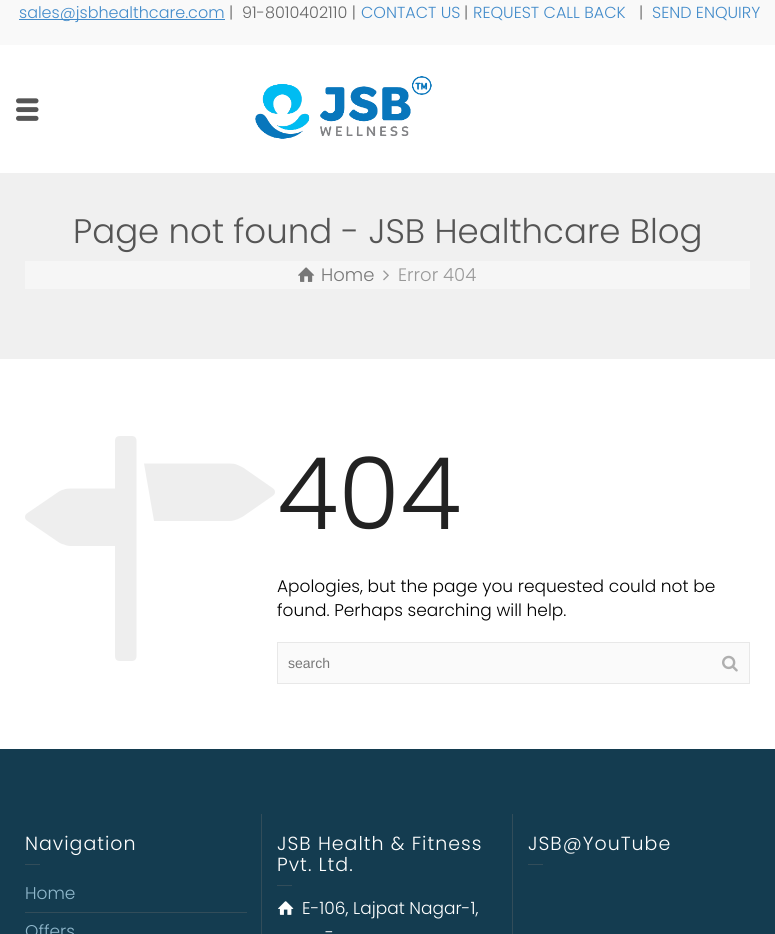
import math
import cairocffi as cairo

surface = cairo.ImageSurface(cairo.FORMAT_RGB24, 775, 934)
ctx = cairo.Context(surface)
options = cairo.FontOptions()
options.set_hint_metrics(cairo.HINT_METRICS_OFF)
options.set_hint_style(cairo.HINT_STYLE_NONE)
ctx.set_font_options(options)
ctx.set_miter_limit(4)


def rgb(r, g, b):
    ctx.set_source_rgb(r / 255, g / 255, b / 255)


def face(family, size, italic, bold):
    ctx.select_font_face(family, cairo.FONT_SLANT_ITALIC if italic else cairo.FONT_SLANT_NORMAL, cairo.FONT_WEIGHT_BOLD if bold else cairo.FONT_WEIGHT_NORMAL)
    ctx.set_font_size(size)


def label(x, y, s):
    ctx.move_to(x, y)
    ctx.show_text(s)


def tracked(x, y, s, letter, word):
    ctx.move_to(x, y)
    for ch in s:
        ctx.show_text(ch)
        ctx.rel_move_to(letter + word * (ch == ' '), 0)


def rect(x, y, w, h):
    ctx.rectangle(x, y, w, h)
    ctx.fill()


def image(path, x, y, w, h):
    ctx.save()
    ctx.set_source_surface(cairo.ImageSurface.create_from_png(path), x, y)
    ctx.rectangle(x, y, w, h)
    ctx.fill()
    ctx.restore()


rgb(249, 249, 249)
ctx.paint()
rgb(66, 139, 202)
rect(19, 19, 206, 1)
face('Poppins Light', 16, 0, 0)
label(19, 18, 'sales@jsbhealthcare.com')
rgb(102, 102, 102)
label(229, 18, '|  91-8010402110 |')
rgb(66, 139, 202)
label(361, 18, 'CONTACT US')
rgb(102, 102, 102)
label(464, 18, '|')
rgb(66, 139, 202)
label(473, 18, 'REQUEST CALL BACK')
rgb(102, 102, 102)
label(639, 18, '|')
rgb(66, 139, 202)
label(652, 18, 'SEND ENQUIRY')
rgb(255, 255, 255)
rect(0, 45, 775, 128)
image('image0.png', 16, 98, 23, 23)
image('image1.png', 255, 76, 177, 63)
rgb(240, 240, 240)
rect(0, 173, 775, 186)
face('Poppins Light', 34, 0, 0)
rgb(85, 85, 85)
label(73, 243, 'Page not found - JSB Healthcare Blog')
rgb(246, 246, 246)
rect(25, 261, 725, 28)
image('image2.png', 298, 267, 17, 15)
face('Poppins Light', 18, 0, 0)
rgb(119, 119, 119)
label(321, 281, 'Home')
image('image3.png', 383, 270, 6, 11)
rgb(153, 153, 153)
label(398, 281, 'Error 404')
rgb(255, 255, 255)
rect(0, 359, 775, 390)
image('image4.png', 25, 436, 250, 225)
face('Poppins Light', 100, 0, 0)
rgb(34, 34, 34)
label(277, 529, '404')
face('Poppins Light', 17, 0, 0)
rgb(0, 0, 0)
label(277, 592, 'Apologies, but the page you requested could not be')
label(277, 616, 'found. Perhaps searching will help.')
rgb(250, 250, 250)
ctx.rectangle(277.5, 642.5, 472, 41)
ctx.fill_preserve()
rgb(232, 232, 232)
ctx.set_line_width(1)
ctx.stroke()
face('Liberation Sans', 14, 0, 0)
rgb(119, 119, 119)
label(288, 668, 'search')
image('image5.png', 722, 655, 16, 17)
rgb(20, 60, 80)
rect(0, 749, 775, 185)
face('Poppins Light', 19, 0, 0)
rgb(255, 255, 255)
tracked(25, 850, 'Navigation', 1, 0)
rgb(50, 77, 90)
rect(25, 864, 15, 1)
rect(25, 912, 222, 1)
face('Poppins Light', 17, 0, 0)
rgb(144, 184, 204)
label(25, 899, 'Home')
label(25, 937, 'Offers')
rgb(50, 77, 90)
rect(261, 814, 1, 120)
face('Poppins Light', 19, 0, 0)
rgb(255, 255, 255)
tracked(277, 850, 'JSB Health & Fitness', 1, 0)
tracked(277, 871, 'Pvt. Ltd.', 1, 0)
rgb(50, 77, 90)
rect(277, 885, 15, 1)
image('image6.png', 278, 901, 16, 14)
face('Poppins Light', 17, 0, 0)
rgb(255, 255, 255)
label(302, 914, 'E-106, Lajpat Nagar-1,')
label(325, 938, '-')
rgb(50, 77, 90)
rect(512, 814, 1, 120)
face('Poppins Light', 19, 0, 0)
rgb(255, 255, 255)
tracked(528, 850, 'JSB@YouTube', 1, 0)
rgb(50, 77, 90)
rect(528, 864, 15, 1)
surface.write_to_png('render.png')
